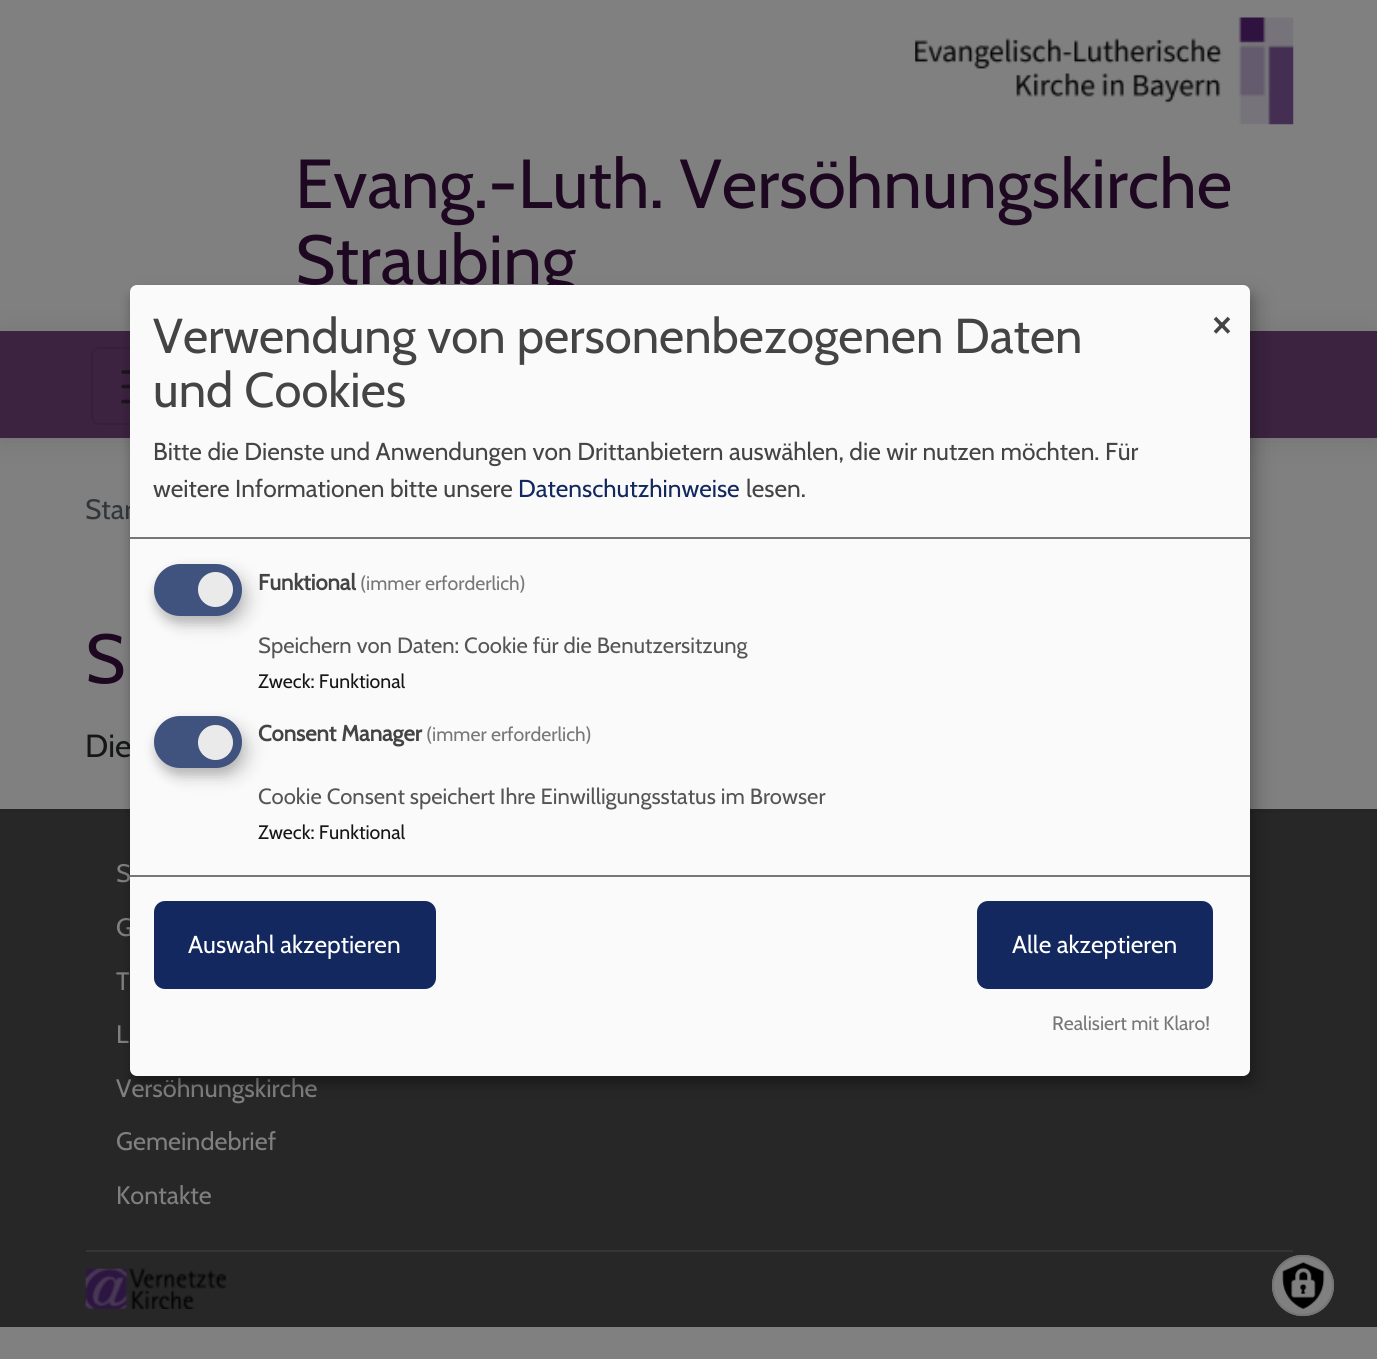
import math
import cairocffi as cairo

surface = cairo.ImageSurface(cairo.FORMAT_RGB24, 1377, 1359)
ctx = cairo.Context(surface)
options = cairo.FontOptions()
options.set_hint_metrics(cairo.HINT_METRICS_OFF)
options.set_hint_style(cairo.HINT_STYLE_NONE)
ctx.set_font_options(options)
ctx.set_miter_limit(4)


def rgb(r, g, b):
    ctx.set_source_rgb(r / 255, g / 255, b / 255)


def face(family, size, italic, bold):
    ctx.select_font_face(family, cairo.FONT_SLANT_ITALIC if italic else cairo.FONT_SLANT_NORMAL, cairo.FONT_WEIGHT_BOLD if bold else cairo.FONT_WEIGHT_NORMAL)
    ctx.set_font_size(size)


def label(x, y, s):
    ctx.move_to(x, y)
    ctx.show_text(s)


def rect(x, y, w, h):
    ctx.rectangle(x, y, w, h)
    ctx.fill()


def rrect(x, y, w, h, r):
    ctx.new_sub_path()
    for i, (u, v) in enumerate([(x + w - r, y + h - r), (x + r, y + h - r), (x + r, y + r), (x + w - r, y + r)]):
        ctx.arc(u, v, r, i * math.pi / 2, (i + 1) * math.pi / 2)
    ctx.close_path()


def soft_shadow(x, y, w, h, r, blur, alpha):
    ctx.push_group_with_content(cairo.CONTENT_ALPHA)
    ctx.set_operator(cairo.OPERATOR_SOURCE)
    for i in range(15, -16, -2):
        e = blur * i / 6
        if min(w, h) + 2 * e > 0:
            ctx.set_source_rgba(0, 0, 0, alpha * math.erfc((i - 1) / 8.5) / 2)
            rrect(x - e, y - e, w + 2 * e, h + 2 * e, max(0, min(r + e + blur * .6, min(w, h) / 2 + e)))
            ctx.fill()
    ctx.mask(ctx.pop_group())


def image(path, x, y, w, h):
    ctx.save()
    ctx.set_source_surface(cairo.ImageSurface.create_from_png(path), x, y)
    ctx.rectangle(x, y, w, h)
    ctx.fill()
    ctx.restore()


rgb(128, 128, 128)
ctx.paint()
image('image0.png', 915, 17, 379, 108)
face('Cabin', 69.25, 0, 0)
rgb(30, 7, 33)
label(295, 208, 'Evang.-Luth. Versöhnungskirche')
label(295, 284, 'Straubing')
rgb(0, 0, 0)
soft_shadow(0, 334, 1377, 107, 0, 13, 0.09)
rgb(60, 35, 64)
rect(0, 331, 1377, 107)
rrect(92, 348, 107, 76, 8)
rgb(54, 32, 57)
ctx.stroke()
ctx.new_path()
ctx.move_to(123, 372)
ctx.line_to(167, 372)
ctx.move_to(123, 386.5)
ctx.line_to(167, 386.5)
ctx.move_to(123, 401.5)
ctx.line_to(167, 401.5)
rgb(30, 18, 32)
ctx.set_line_width(3.7)
ctx.set_line_cap(cairo.LINE_CAP_ROUND)
ctx.stroke()
face('Cabin', 28, 0, 0)
rgb(50, 54, 57)
label(85, 519, 'Star')
face('Cabin', 69.25, 0, 0)
rgb(30, 7, 33)
label(85, 683, 'S')
face('Cabin', 32, 0, 0)
rgb(21, 22, 22)
label(85, 757, 'Die')
rgb(39, 39, 39)
rect(0, 813, 1377, 514)
rgb(35, 37, 38)
rect(0, 809, 1377, 4)
face('Cabin', 25.25, 0, 0)
rgb(128, 128, 128)
label(116, 882, 'S')
label(116, 936, 'G')
label(116, 990, 'T')
label(116, 1043, 'L')
label(116, 1097, 'Versöhnungskirche')
label(116, 1150, 'Gemeindebrief')
label(116, 1204, 'Kontakte')
rgb(50, 54, 57)
rect(86, 1250, 1207, 2)
image('image1.png', 85, 1268, 141, 41)
rgb(0, 0, 0)
soft_shadow(138, 294, 1120, 791, 7, 9, 0.19)
soft_shadow(130, 292, 1120, 791, 7, 5, 0.2)
rgb(250, 250, 250)
rrect(130, 285, 1120, 791, 7)
ctx.fill()
rgb(119, 119, 119)
rect(130, 537, 1120, 2)
face('Cabin', 49, 0, 0)
rgb(68, 68, 68)
label(153, 353, 'Verwendung von personenbezogenen Daten')
label(153, 407, 'und Cookies')
face('Cabin', 24.5, 0, 0)
label(153, 460, 'Bitte die Dienste und Anwendungen von Drittanbietern auswählen, die wir nutzen möchten. Für')
label(153, 497, 'weitere Informationen bitte unsere')
rgb(18, 40, 95)
label(518, 497, 'Datenschutzhinweise')
rgb(68, 68, 68)
label(746, 497, 'lesen.')
face('Cabin', 49, 0, 0)
label(1212, 339, '×')
rgb(0, 0, 0)
soft_shadow(163, 572, 87, 53, 26.5, 9, 0.15)
rgb(50, 50, 50)
soft_shadow(154, 571, 88, 52, 26, 5, 0.2)
rgb(64, 82, 126)
rrect(154, 564, 88, 52, 26)
ctx.fill()
rgb(234, 234, 234)
ctx.arc(215.5, 589.5, 17.5, 0, 2 * math.pi)
ctx.fill()
face('Cabin', 22.05, 0, 1)
rgb(68, 68, 68)
label(258, 590, 'Funktional')
face('Cabin', 19.5, 0, 0)
rgb(119, 119, 119)
label(360, 590, '(immer erforderlich)')
face('Cabin', 22.05, 0, 0)
rgb(85, 85, 85)
label(258, 653, 'Speichern von Daten: Cookie für die Benutzersitzung')
face('Cabin', 19.5, 0, 0)
rgb(21, 22, 22)
label(258, 688, 'Zweck: Funktional')
rgb(0, 0, 0)
soft_shadow(163, 725, 87, 52, 26, 9, 0.15)
rgb(50, 50, 50)
soft_shadow(154, 723, 88, 52, 26, 5, 0.2)
rgb(64, 82, 126)
rrect(154, 716, 88, 52, 26)
ctx.fill()
rgb(234, 234, 234)
ctx.arc(215.5, 742.5, 17.5, 0, 2 * math.pi)
ctx.fill()
face('Cabin', 22.05, 0, 1)
rgb(68, 68, 68)
label(258, 741, 'Consent Manager')
face('Cabin', 19.5, 0, 0)
rgb(119, 119, 119)
label(426, 741, '(immer erforderlich)')
face('Cabin', 22.05, 0, 0)
rgb(85, 85, 85)
label(258, 804, 'Cookie Consent speichert Ihre Einwilligungsstatus im Browser')
face('Cabin', 19.5, 0, 0)
rgb(21, 22, 22)
label(258, 839, 'Zweck: Funktional')
rgb(119, 119, 119)
rect(130, 875, 1120, 2)
rgb(18, 40, 95)
rrect(156.5, 903.5, 277, 83, 8.5)
ctx.fill_preserve()
ctx.set_line_width(5)
ctx.set_line_cap(cairo.LINE_CAP_BUTT)
ctx.stroke()
face('Cabin', 24.5, 0, 0)
rgb(255, 255, 255)
label(188, 953, 'Auswahl akzeptieren')
rgb(18, 40, 95)
rrect(979.5, 903.5, 231, 83, 8.5)
ctx.fill_preserve()
ctx.stroke()
rgb(255, 255, 255)
label(1012, 953, 'Alle akzeptieren')
face('Cabin', 19.5, 0, 0)
rgb(119, 119, 119)
label(1052, 1030, 'Realisiert mit Klaro!')
rgb(128, 128, 128)
rrect(1272, 1255, 62, 61, 30.5)
ctx.fill()
image('image2.png', 1282, 1262, 43, 47)
rrect(1273, 1256, 60, 59, 29.5)
rgb(117, 117, 117)
ctx.set_line_width(2)
ctx.stroke()
surface.write_to_png('render.png')
